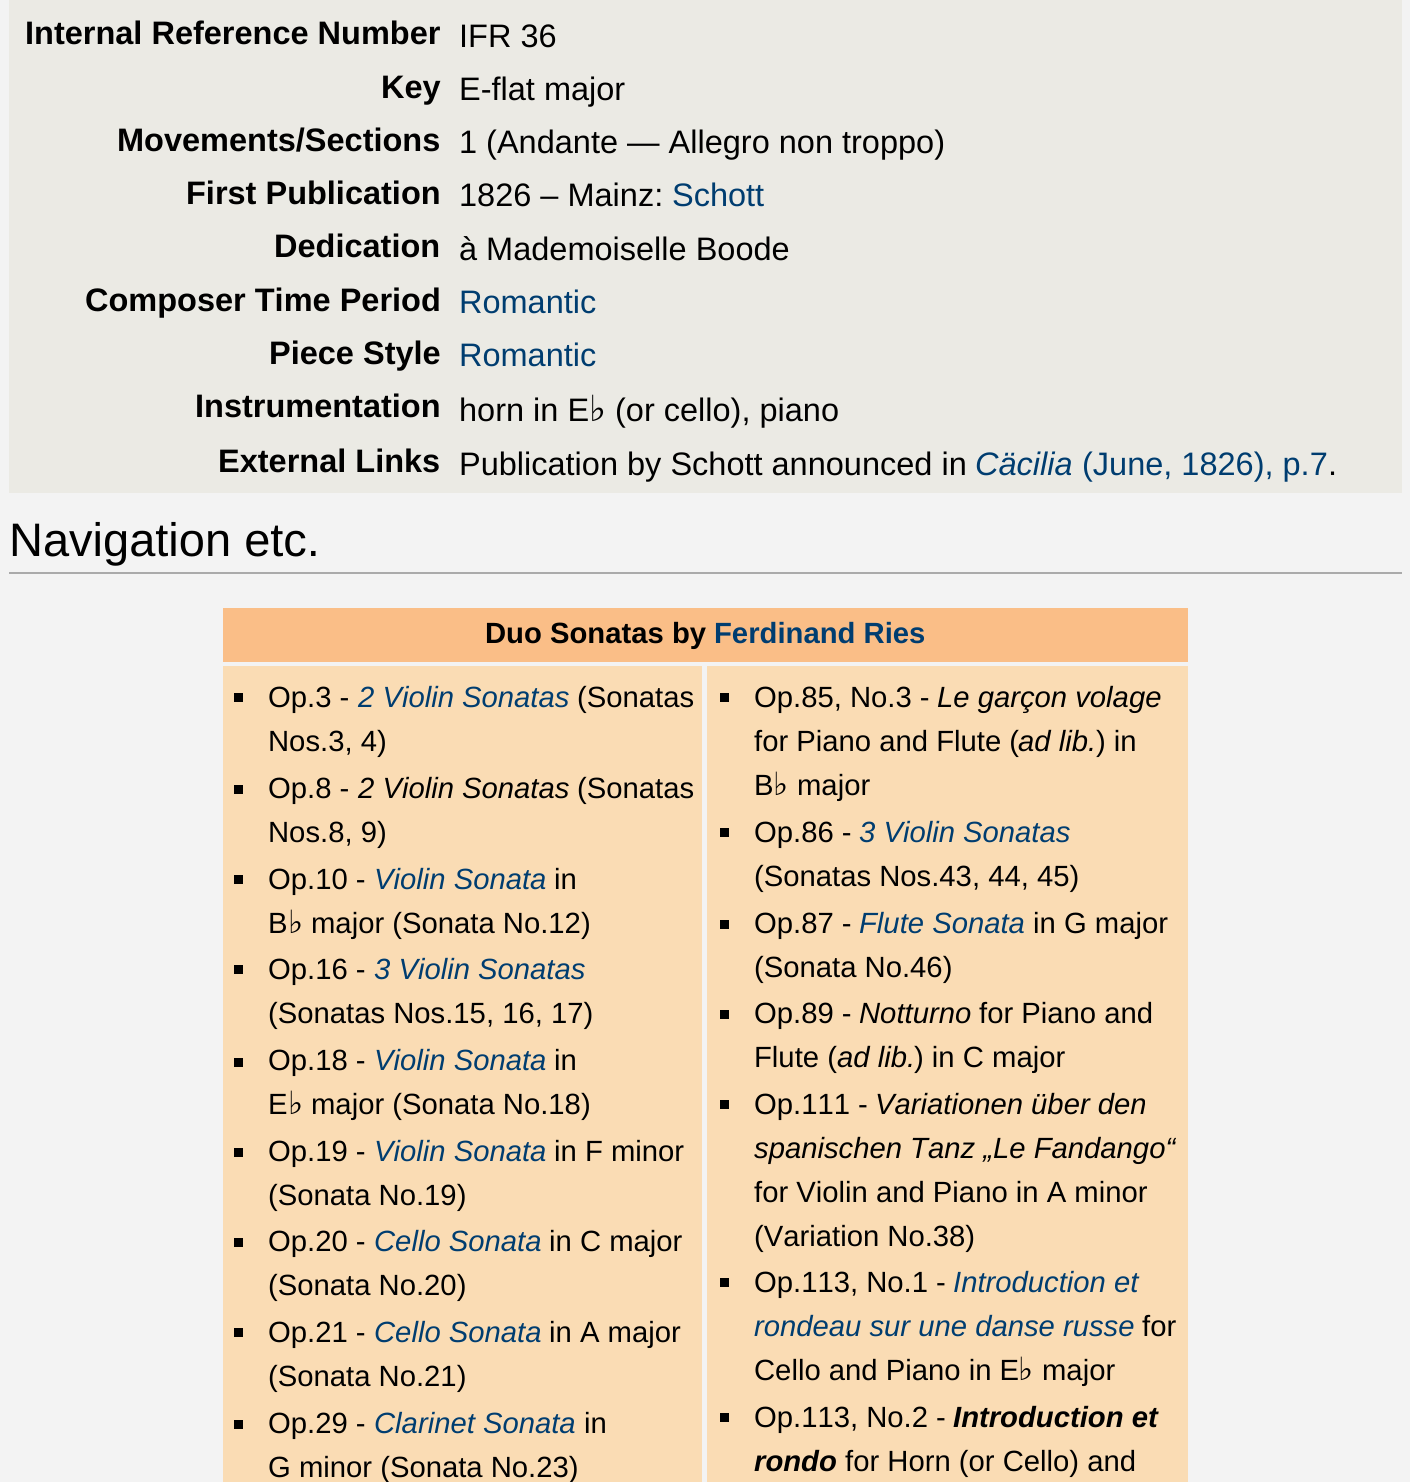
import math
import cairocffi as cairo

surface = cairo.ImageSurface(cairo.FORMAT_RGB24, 1410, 1482)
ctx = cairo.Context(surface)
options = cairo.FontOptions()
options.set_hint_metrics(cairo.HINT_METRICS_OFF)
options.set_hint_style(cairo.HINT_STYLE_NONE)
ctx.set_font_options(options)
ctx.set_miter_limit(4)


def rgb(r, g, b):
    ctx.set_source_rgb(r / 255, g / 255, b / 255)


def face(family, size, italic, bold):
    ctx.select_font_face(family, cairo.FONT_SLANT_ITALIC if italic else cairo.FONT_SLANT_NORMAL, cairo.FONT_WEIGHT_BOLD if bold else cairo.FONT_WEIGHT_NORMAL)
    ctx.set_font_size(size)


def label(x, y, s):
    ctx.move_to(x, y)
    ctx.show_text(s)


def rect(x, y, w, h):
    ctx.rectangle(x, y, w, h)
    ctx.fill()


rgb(243, 243, 243)
ctx.paint()
rgb(235, 234, 228)
rect(9, 0, 1393, 493)
face('Liberation Sans', 32.5, 0, 1)
rgb(0, 0, 0)
label(25, 44, 'Internal Reference Number')
face('Liberation Sans', 32.5, 0, 0)
label(459, 47, 'IFR 36')
face('Liberation Sans', 32.5, 0, 1)
label(381, 98, 'Key')
face('Liberation Sans', 32.5, 0, 0)
label(459, 100, 'E-flat major')
face('Liberation Sans', 32.5, 0, 1)
label(117, 151, 'Movements/Sections')
face('Liberation Sans', 32.5, 0, 0)
label(459, 153, '1 (Andante — Allegro non troppo)')
face('Liberation Sans', 32.5, 0, 1)
label(186, 204, 'First Publication')
face('Liberation Sans', 32.5, 0, 0)
label(459, 206, '1826 – Mainz:')
rgb(0, 61, 112)
label(672, 206, 'Schott')
face('Liberation Sans', 32.5, 0, 1)
rgb(0, 0, 0)
label(274, 257, 'Dedication')
face('Liberation Sans', 32.5, 0, 0)
label(459, 260, 'à Mademoiselle Boode')
face('Liberation Sans', 32.5, 0, 1)
label(85, 311, 'Composer Time Period')
face('Liberation Sans', 32.5, 0, 0)
rgb(0, 61, 112)
label(459, 313, 'Romantic')
face('Liberation Sans', 32.5, 0, 1)
rgb(0, 0, 0)
label(269, 364, 'Piece Style')
face('Liberation Sans', 32.5, 0, 0)
rgb(0, 61, 112)
label(459, 366, 'Romantic')
face('Liberation Sans', 32.5, 0, 1)
rgb(0, 0, 0)
label(195, 417, 'Instrumentation')
face('Liberation Sans', 32.5, 0, 0)
label(459, 421, 'horn in E')
face('DejaVu Sans', 36, 0, 0)
label(589, 421, '♭')
face('Liberation Sans', 32.5, 0, 0)
label(615, 421, '(or cello), piano')
face('Liberation Sans', 32.5, 0, 1)
label(218, 472, 'External Links')
face('Liberation Sans', 32.5, 0, 0)
label(459, 475, 'Publication by Schott announced in')
face('Liberation Sans', 32.5, 1, 0)
rgb(0, 61, 112)
label(975, 475, 'Cäcilia')
face('Liberation Sans', 32.5, 0, 0)
label(1082, 475, '(June, 1826), p.7')
rgb(0, 0, 0)
label(1328, 475, '.')
rgb(170, 170, 170)
rect(9, 572, 1393, 2)
face('Liberation Sans', 47, 0, 0)
rgb(0, 0, 0)
label(9, 556, 'Navigation etc.')
rgb(250, 190, 135)
rect(223, 608, 965, 54)
face('Liberation Sans', 29.25, 0, 1)
rgb(0, 0, 0)
label(485, 643, 'Duo Sonatas by')
rgb(0, 61, 112)
label(714, 643, 'Ferdinand Ries')
rgb(250, 220, 180)
rect(223, 666, 479, 816)
rgb(0, 0, 0)
rect(234, 693, 9, 9)
face('Liberation Sans', 29.25, 0, 0)
label(268, 707, 'Op.3 -')
face('Liberation Sans', 29.25, 1, 0)
rgb(0, 61, 112)
label(358, 707, '2 Violin Sonatas')
face('Liberation Sans', 29.25, 0, 0)
rgb(0, 0, 0)
label(577, 707, '(Sonatas')
label(268, 751, 'Nos.3, 4)')
rect(234, 785, 9, 9)
label(268, 798, 'Op.8 -')
face('Liberation Sans', 29.25, 1, 0)
label(358, 798, '2 Violin Sonatas')
face('Liberation Sans', 29.25, 0, 0)
label(577, 798, '(Sonatas')
label(268, 842, 'Nos.8, 9)')
rect(234, 875, 9, 9)
label(268, 889, 'Op.10 -')
face('Liberation Sans', 29.25, 1, 0)
rgb(0, 61, 112)
label(374, 889, 'Violin Sonata')
face('Liberation Sans', 29.25, 0, 0)
rgb(0, 0, 0)
label(554, 889, 'in')
label(268, 933, 'B')
face('DejaVu Sans', 32, 0, 0)
label(288, 933, '♭')
face('Liberation Sans', 29.25, 0, 0)
label(311, 933, 'major (Sonata No.12)')
rect(234, 965, 9, 9)
label(268, 979, 'Op.16 -')
face('Liberation Sans', 29.25, 1, 0)
rgb(0, 61, 112)
label(374, 979, '3 Violin Sonatas')
face('Liberation Sans', 29.25, 0, 0)
rgb(0, 0, 0)
label(268, 1023, '(Sonatas Nos.15, 16, 17)')
rect(234, 1058, 9, 9)
label(268, 1070, 'Op.18 -')
face('Liberation Sans', 29.25, 1, 0)
rgb(0, 61, 112)
label(374, 1070, 'Violin Sonata')
face('Liberation Sans', 29.25, 0, 0)
rgb(0, 0, 0)
label(554, 1070, 'in')
label(268, 1114, 'E')
face('DejaVu Sans', 32, 0, 0)
label(288, 1114, '♭')
face('Liberation Sans', 29.25, 0, 0)
label(311, 1114, 'major (Sonata No.18)')
rect(234, 1148, 9, 9)
label(268, 1161, 'Op.19 -')
face('Liberation Sans', 29.25, 1, 0)
rgb(0, 61, 112)
label(374, 1161, 'Violin Sonata')
face('Liberation Sans', 29.25, 0, 0)
rgb(0, 0, 0)
label(554, 1161, 'in F minor')
label(268, 1205, '(Sonata No.19)')
rect(234, 1238, 9, 9)
label(268, 1251, 'Op.20 -')
face('Liberation Sans', 29.25, 1, 0)
rgb(0, 61, 112)
label(374, 1251, 'Cello Sonata')
face('Liberation Sans', 29.25, 0, 0)
rgb(0, 0, 0)
label(549, 1251, 'in C major')
label(268, 1295, '(Sonata No.20)')
rect(234, 1328, 9, 9)
label(268, 1342, 'Op.21 -')
face('Liberation Sans', 29.25, 1, 0)
rgb(0, 61, 112)
label(374, 1342, 'Cello Sonata')
face('Liberation Sans', 29.25, 0, 0)
rgb(0, 0, 0)
label(549, 1342, 'in A major')
label(268, 1386, '(Sonata No.21)')
rect(234, 1420, 9, 9)
label(268, 1433, 'Op.29 -')
face('Liberation Sans', 29.25, 1, 0)
rgb(0, 61, 112)
label(374, 1433, 'Clarinet Sonata')
face('Liberation Sans', 29.25, 0, 0)
rgb(0, 0, 0)
label(584, 1433, 'in')
label(268, 1477, 'G minor (Sonata No.23)')
rgb(250, 220, 180)
rect(707, 666, 481, 816)
rgb(0, 0, 0)
rect(720, 693, 9, 9)
label(754, 707, 'Op.85, No.3 -')
face('Liberation Sans', 29.25, 1, 0)
label(937, 707, 'Le garçon volage')
face('Liberation Sans', 29.25, 0, 0)
label(754, 751, 'for Piano and Flute (')
face('Liberation Sans', 29.25, 1, 0)
label(1018, 751, 'ad lib.')
face('Liberation Sans', 29.25, 0, 0)
label(1096, 751, ') in')
label(754, 795, 'B')
face('DejaVu Sans', 32, 0, 0)
label(773, 795, '♭')
face('Liberation Sans', 29.25, 0, 0)
label(797, 795, 'major')
rect(720, 828, 9, 9)
label(754, 842, 'Op.86 -')
face('Liberation Sans', 29.25, 1, 0)
rgb(0, 61, 112)
label(859, 842, '3 Violin Sonatas')
face('Liberation Sans', 29.25, 0, 0)
rgb(0, 0, 0)
label(754, 886, '(Sonatas Nos.43, 44, 45)')
rect(720, 920, 9, 9)
label(754, 933, 'Op.87 -')
face('Liberation Sans', 29.25, 1, 0)
rgb(0, 61, 112)
label(859, 933, 'Flute Sonata')
face('Liberation Sans', 29.25, 0, 0)
rgb(0, 0, 0)
label(1033, 933, 'in G major')
label(754, 977, '(Sonata No.46)')
rect(720, 1010, 9, 9)
label(754, 1023, 'Op.89 -')
face('Liberation Sans', 29.25, 1, 0)
label(859, 1023, 'Notturno')
face('Liberation Sans', 29.25, 0, 0)
label(979, 1023, 'for Piano and')
label(754, 1067, 'Flute (')
face('Liberation Sans', 29.25, 1, 0)
label(837, 1067, 'ad lib.')
face('Liberation Sans', 29.25, 0, 0)
label(914, 1067, ') in C major')
rect(720, 1100, 9, 9)
label(754, 1114, 'Op.111 -')
face('Liberation Sans', 29.25, 1, 0)
label(875, 1114, 'Variationen über den')
label(754, 1158, 'spanischen Tanz „Le Fandango“')
face('Liberation Sans', 29.25, 0, 0)
label(754, 1202, 'for Violin and Piano in A minor')
label(754, 1246, '(Variation No.38)')
rect(720, 1278, 9, 9)
label(754, 1292, 'Op.113, No.1 -')
face('Liberation Sans', 29.25, 1, 0)
rgb(0, 61, 112)
label(953, 1292, 'Introduction et')
label(754, 1336, 'rondeau sur une danse russe')
face('Liberation Sans', 29.25, 0, 0)
rgb(0, 0, 0)
label(1142, 1336, 'for')
label(754, 1380, 'Cello and Piano in E')
face('DejaVu Sans', 32, 0, 0)
label(1018, 1380, '♭')
face('Liberation Sans', 29.25, 0, 0)
label(1042, 1380, 'major')
rect(720, 1413, 9, 9)
label(754, 1427, 'Op.113, No.2 -')
face('Liberation Sans', 29.25, 1, 1)
label(953, 1427, 'Introduction et')
label(754, 1471, 'rondo')
face('Liberation Sans', 29.25, 0, 0)
label(845, 1471, 'for Horn (or Cello) and')
surface.write_to_png('render.png')
